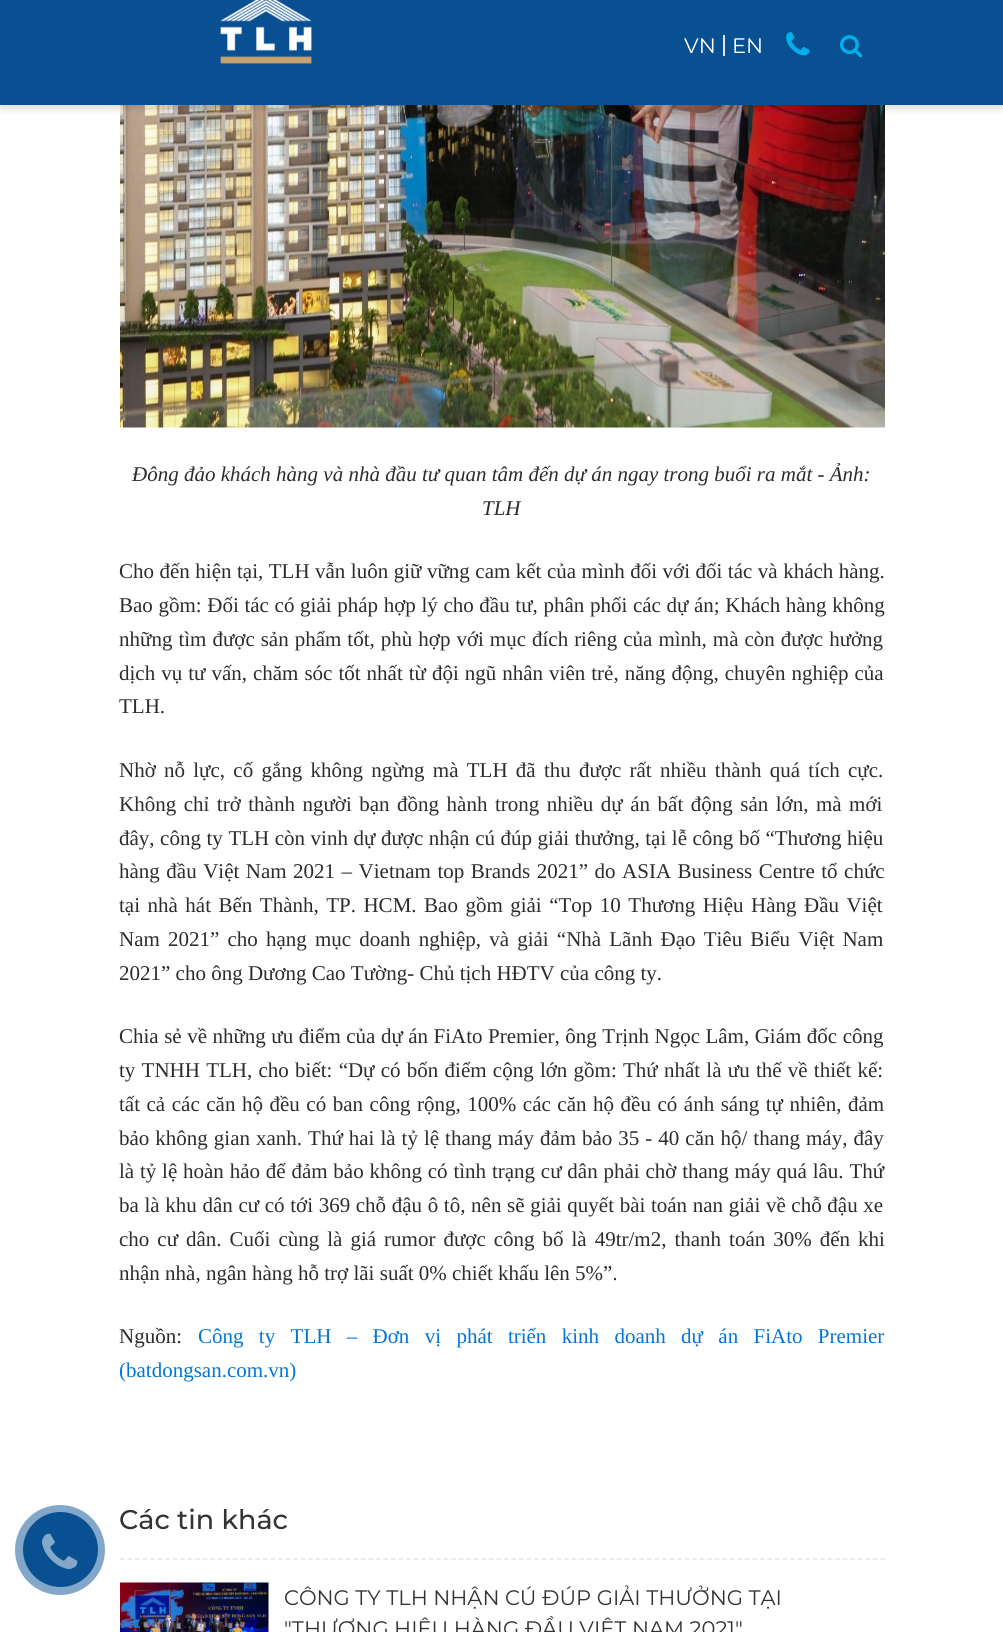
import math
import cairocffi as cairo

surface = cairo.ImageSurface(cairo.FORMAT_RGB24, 1003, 1632)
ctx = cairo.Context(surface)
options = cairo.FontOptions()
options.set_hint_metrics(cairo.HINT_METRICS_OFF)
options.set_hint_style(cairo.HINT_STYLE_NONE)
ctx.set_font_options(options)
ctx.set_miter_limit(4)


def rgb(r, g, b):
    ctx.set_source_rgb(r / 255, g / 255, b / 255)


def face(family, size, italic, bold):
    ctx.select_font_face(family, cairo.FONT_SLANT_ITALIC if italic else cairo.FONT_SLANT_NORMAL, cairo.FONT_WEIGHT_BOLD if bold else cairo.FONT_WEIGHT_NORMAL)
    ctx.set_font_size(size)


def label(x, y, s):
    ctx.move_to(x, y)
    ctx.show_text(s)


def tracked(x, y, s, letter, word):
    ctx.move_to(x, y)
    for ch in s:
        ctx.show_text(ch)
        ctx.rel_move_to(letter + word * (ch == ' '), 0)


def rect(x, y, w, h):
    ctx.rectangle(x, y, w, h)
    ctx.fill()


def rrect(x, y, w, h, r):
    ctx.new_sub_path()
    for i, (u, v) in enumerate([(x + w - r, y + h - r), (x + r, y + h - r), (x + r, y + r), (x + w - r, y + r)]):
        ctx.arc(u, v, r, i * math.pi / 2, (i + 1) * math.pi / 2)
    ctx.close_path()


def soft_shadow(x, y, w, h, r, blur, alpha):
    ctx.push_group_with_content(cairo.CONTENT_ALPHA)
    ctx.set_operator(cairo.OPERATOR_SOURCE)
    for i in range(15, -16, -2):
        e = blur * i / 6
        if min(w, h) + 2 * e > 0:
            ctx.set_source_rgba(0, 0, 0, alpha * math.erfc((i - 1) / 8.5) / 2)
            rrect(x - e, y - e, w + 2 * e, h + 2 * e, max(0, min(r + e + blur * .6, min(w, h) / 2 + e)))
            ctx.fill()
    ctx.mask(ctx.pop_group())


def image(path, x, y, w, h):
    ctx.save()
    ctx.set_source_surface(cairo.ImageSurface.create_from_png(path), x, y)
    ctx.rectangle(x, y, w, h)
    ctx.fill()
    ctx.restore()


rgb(255, 255, 255)
ctx.paint()
image('image4.png', 120, 105, 765, 323)
rgb(0, 0, 0)
soft_shadow(0, 3, 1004, 105, 0, 4, 0.15)
rgb(9, 80, 146)
rect(0, 0, 1003, 105)
image('image0.png', 220, 0, 92, 64)
face('Montserrat', 21, 0, 0)
rgb(255, 255, 255)
label(684, 53, 'VN')
rgb(230, 230, 230)
rect(723, 35, 2, 21)
rgb(255, 255, 255)
label(732, 53, 'EN')
image('image1.png', 786, 32, 24, 24)
image('image2.png', 840, 35, 23, 23)
rgb(9, 80, 146)
ctx.arc(60.5, 1549.5, 37.5, 0, 2 * math.pi)
ctx.fill()
image('image3.png', 42, 1533, 36, 36)
ctx.set_source_rgba(0.035, 0.314, 0.573, 0.5)
ctx.arc(60, 1550, 45, 0, 2 * math.pi)
ctx.fill()
face('Liberation Serif', 21, 1, 0)
rgb(44, 44, 44)
label(132, 481, 'Đông đảo khách hàng và nhà đầu tư quan tâm đến dự án ngay trong buổi ra mắt - Ảnh:')
label(482, 515, 'TLH')
face('Liberation Serif', 21, 0, 0)
tracked(119, 578, 'Cho đến hiện tại, TLH vẫn luôn giữ vững cam kết của mình đối với đối tác và khách hàng.', 0, 0.25)
tracked(119, 612, 'Bao gồm: Đối tác có giải pháp hợp lý cho đầu tư, phân phối các dự án; Khách hàng không', 0, 0.4)
tracked(119, 646, 'những tìm được sản phẩm tốt, phù hợp với mục đích riêng của mình, mà còn được hưởng', 0, 0.75)
tracked(119, 680, 'dịch vụ tư vấn, chăm sóc tốt nhất từ đội ngũ nhân viên trẻ, năng động, chuyên nghiệp của', 0, 0.75)
label(119, 713, 'TLH.')
tracked(119, 777, 'Nhờ nỗ lực, cố gắng không ngừng mà TLH đã thu được rất nhiều thành quá tích cực.', 0, 3)
tracked(119, 811, 'Không chỉ trở thành người bạn đồng hành trong nhiều dự án bất động sản lớn, mà mới', 0, 2.25)
tracked(119, 845, 'đây, công ty TLH còn vinh dự được nhận cú đúp giải thưởng, tại lễ công bố “Thương hiệu', 0, 0.3)
tracked(119, 878, 'hàng đầu Việt Nam 2021 – Vietnam top Brands 2021” do ASIA Business Centre tổ chức', 0, 1.25)
tracked(119, 912, 'tại nhà hát Bến Thành, TP. HCM. Bao gồm giải “Top 10 Thương Hiệu Hàng Đầu Việt', 0, 2.25)
tracked(119, 946, 'Nam 2021” cho hạng mục doanh nghiệp, và giải “Nhà Lãnh Đạo Tiêu Biểu Việt Nam', 0, 2.9)
label(119, 980, '2021” cho ông Dương Cao Tường- Chủ tịch HĐTV của công ty.')
tracked(119, 1043, 'Chia sẻ về những ưu điểm của dự án FiAto Premier, ông Trịnh Ngọc Lâm, Giám đốc công', 0, 0.25)
tracked(119, 1077, 'ty TNHH TLH, cho biết: “Dự có bốn điểm cộng lớn gồm: Thứ nhất là ưu thế về thiết kế:', 0, 1)
tracked(119, 1111, 'tất cả các căn hộ đều có ban công rộng, 100% các căn hộ đều có ánh sáng tự nhiên, đảm', 0, 1.3)
tracked(119, 1145, 'bảo không gian xanh. Thứ hai là tỷ lệ thang máy đảm bảo 35 - 40 căn hộ/ thang máy, đây', 0, 0.75)
tracked(119, 1178, 'là tỷ lệ hoàn hảo để đảm bảo không có tình trạng cư dân phải chờ thang máy quá lâu. Thứ', 0, 0.55)
tracked(119, 1212, 'ba là khu dân cư có tới 369 chỗ đậu ô tô, nên sẽ giải quyết bài toán nan giải về chỗ đậu xe', 0, 0.4)
tracked(119, 1246, 'cho cư dân. Cuối cùng là giá rumor được công bố là 49tr/m2, thanh toán 30% đến khi', 0, 2.75)
label(119, 1280, 'nhận nhà, ngân hàng hỗ trợ lãi suất 0% chiết khấu lên 5%”.')
label(119, 1343, 'Nguồn:')
rgb(2, 117, 216)
tracked(198, 1343, 'Công ty TLH – Đơn vị phát triển kinh doanh dự án FiAto Premier', 0, 10.1)
label(119, 1377, '(batdongsan.com.vn)')
face('Montserrat Medium', 27, 0, 0)
rgb(51, 51, 51)
label(119, 1529, 'Các tin khác')
ctx.new_path()
ctx.move_to(120, 1559)
ctx.line_to(885, 1559)
rgb(230, 230, 230)
ctx.set_line_width(1.5)
ctx.set_dash([4.5, 3.03])
ctx.stroke()
image('image5.png', 120, 1582, 149, 50)
face('Montserrat', 21, 0, 0)
rgb(51, 51, 51)
label(284, 1605, 'CÔNG TY TLH NHẬN CÚ ĐÚP GIẢI THƯỞNG TẠI')
label(284, 1636, '"THƯƠNG HIỆU HÀNG ĐẦU VIỆT NAM 2021"')
surface.write_to_png('render.png')
